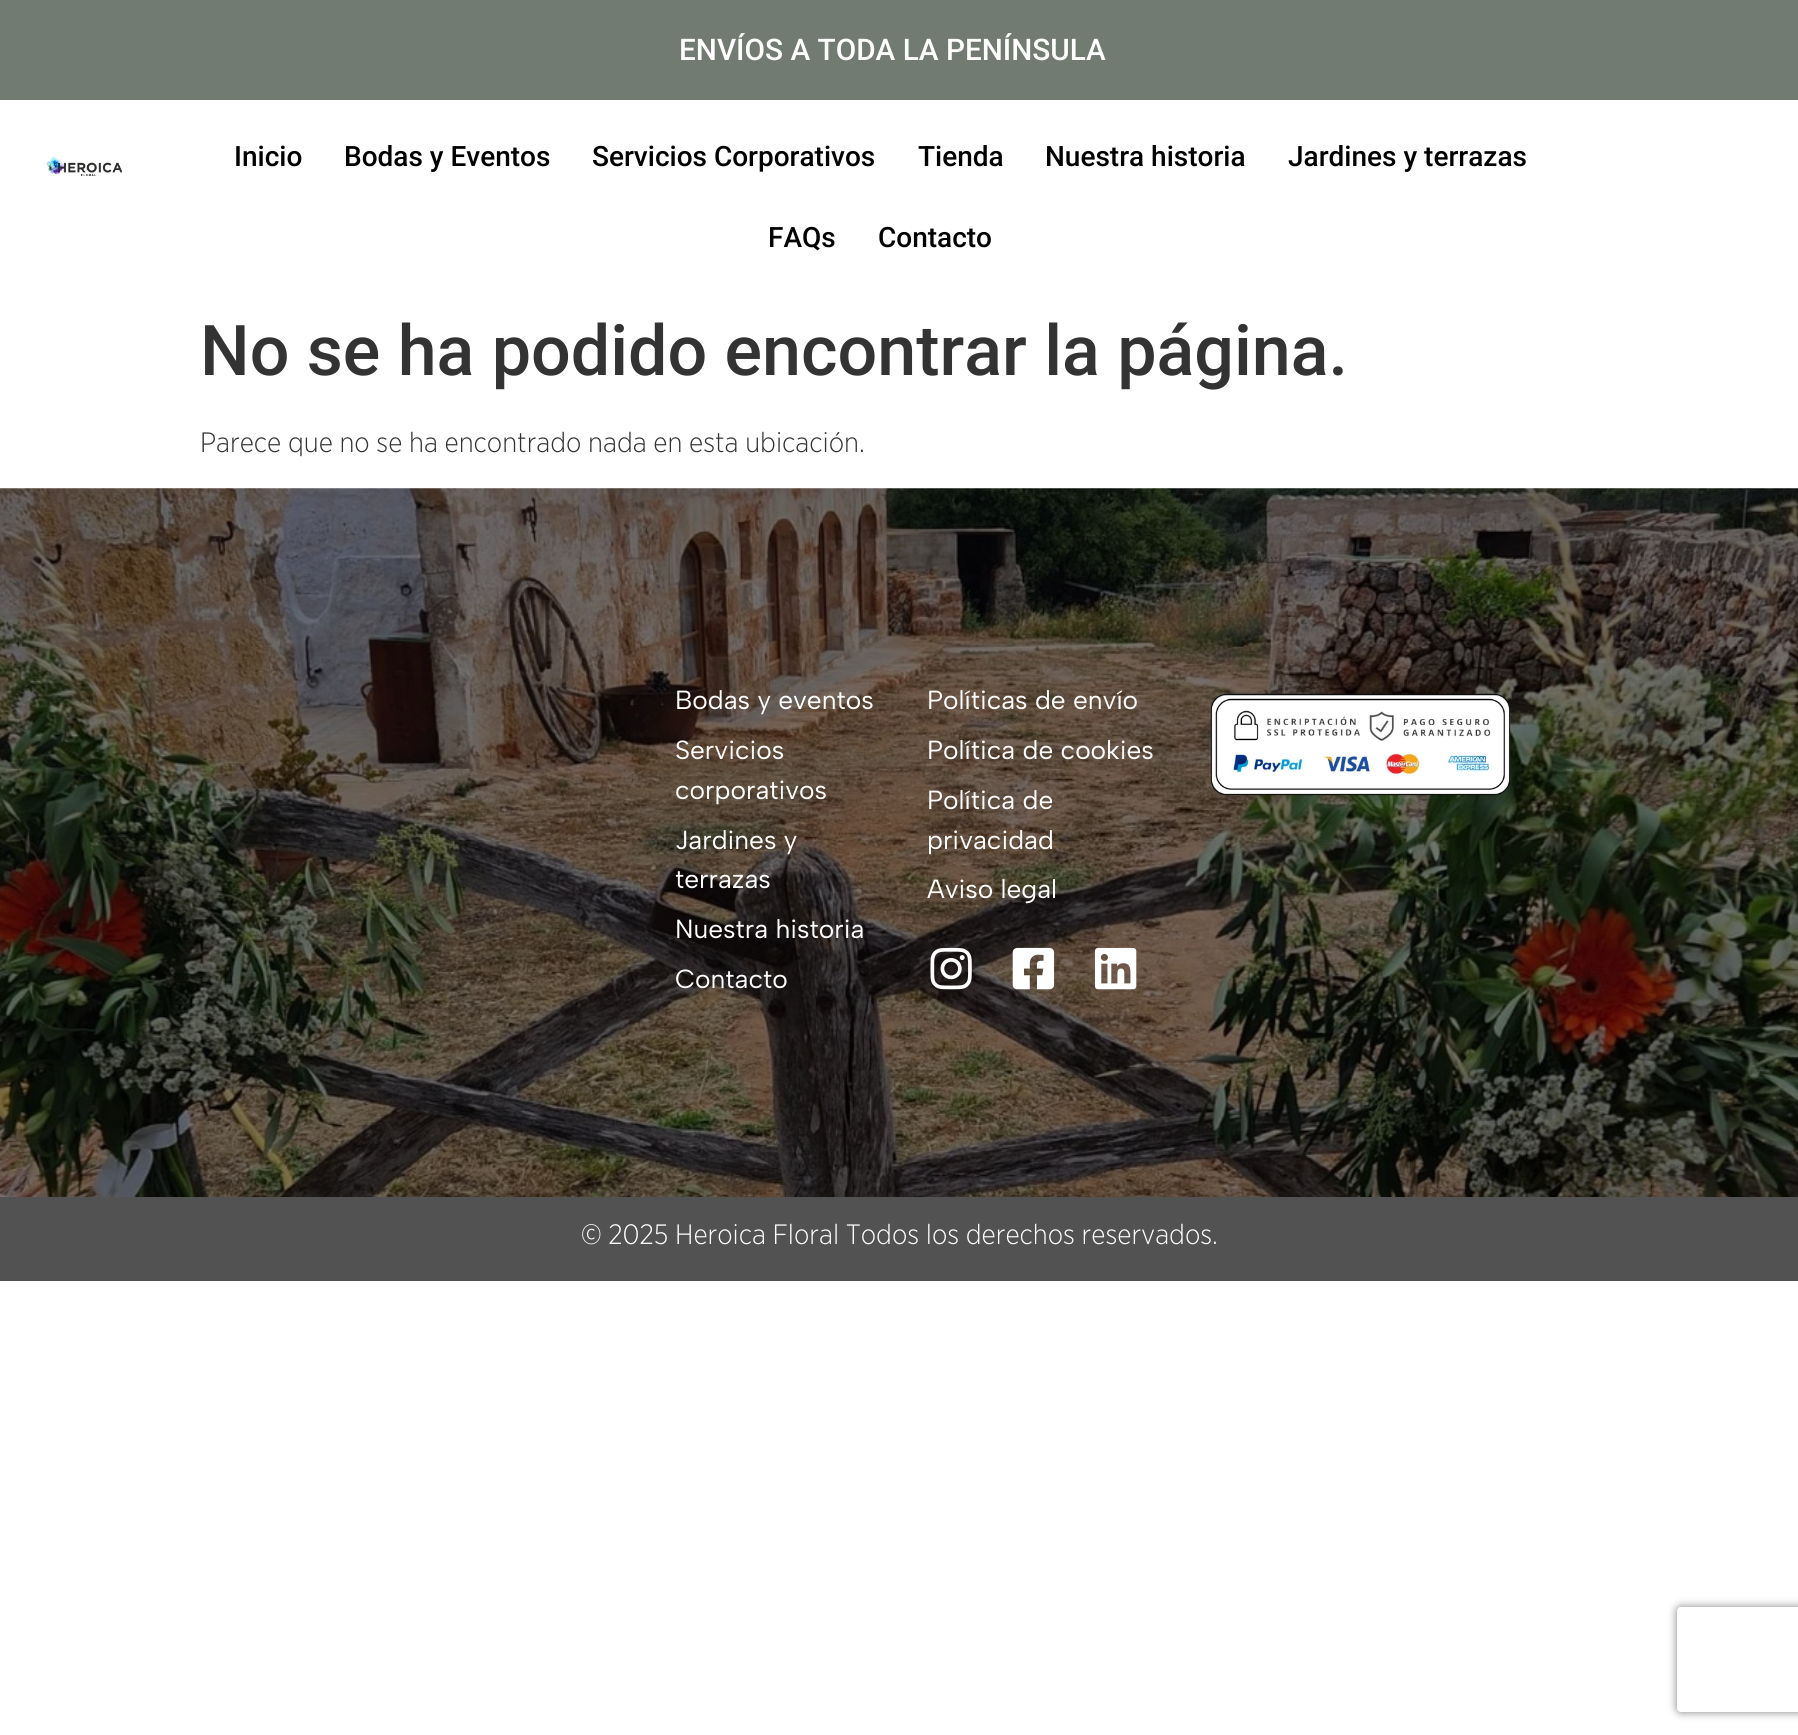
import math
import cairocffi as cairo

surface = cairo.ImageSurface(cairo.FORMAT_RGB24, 1798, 1735)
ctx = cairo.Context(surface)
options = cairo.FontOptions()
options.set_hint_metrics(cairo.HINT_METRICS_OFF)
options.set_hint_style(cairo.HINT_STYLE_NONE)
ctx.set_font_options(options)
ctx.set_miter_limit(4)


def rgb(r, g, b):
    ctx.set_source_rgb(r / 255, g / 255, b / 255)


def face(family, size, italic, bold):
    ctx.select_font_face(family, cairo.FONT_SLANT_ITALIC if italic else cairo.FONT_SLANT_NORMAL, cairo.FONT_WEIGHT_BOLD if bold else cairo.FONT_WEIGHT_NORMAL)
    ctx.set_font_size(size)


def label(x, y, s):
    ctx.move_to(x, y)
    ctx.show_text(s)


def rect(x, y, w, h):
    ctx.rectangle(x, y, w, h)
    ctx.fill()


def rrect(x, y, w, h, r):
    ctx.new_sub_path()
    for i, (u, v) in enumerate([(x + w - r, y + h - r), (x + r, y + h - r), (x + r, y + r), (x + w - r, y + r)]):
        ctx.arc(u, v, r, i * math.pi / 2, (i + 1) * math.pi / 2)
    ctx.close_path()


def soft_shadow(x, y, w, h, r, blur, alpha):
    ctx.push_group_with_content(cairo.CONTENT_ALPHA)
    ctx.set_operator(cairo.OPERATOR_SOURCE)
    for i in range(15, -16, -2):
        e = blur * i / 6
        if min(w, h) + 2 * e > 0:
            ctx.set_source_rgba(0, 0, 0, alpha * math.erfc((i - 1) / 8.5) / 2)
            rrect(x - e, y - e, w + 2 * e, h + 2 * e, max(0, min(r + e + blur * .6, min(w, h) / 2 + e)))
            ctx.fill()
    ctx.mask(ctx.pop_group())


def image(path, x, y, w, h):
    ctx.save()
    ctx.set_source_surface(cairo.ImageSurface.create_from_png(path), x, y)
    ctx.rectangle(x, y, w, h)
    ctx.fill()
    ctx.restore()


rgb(255, 255, 255)
ctx.paint()
rgb(113, 123, 113)
rect(0, 0, 1798, 100)
face('Roboto Medium', 29.75, 0, 0)
rgb(255, 255, 255)
label(679, 60, 'ENVÍOS A TODA LA PENÍNSULA')
image('image0.png', 46, 156, 77, 20)
face('Roboto Medium', 28, 0, 0)
rgb(0, 0, 0)
label(234, 166, 'Inicio')
label(344, 166, 'Bodas y Eventos')
label(592, 166, 'Servicios Corporativos')
label(918, 166, 'Tienda')
label(1045, 166, 'Nuestra historia')
label(1288, 166, 'Jardines y terrazas')
label(768, 247, 'FAQs')
label(878, 247, 'Contacto')
face('Roboto Medium', 70, 0, 0)
rgb(51, 51, 51)
label(200, 375, 'No se ha podido encontrar la página.')
face('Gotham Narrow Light', 28, 0, 0)
label(200, 452, 'Parece que no se ha encontrado nada en esta ubicación.')
image('image1.png', 0, 488, 1798, 709)
face('Albert Sans', 26.25, 0, 0)
rgb(255, 255, 255)
label(675, 709, 'Bodas y eventos')
label(675, 759, 'Servicios')
label(675, 799, 'corporativos')
label(675, 849, 'Jardines y')
label(675, 888, 'terrazas')
label(675, 938, 'Nuestra historia')
label(675, 988, 'Contacto')
label(927, 709, 'Políticas de envío')
label(927, 759, 'Política de cookies')
label(927, 809, 'Política de')
label(927, 849, 'privacidad')
label(927, 898, 'Aviso legal')
image('image2.png', 930, 947, 42, 43)
image('image3.png', 1012, 947, 43, 43)
image('image4.png', 1094, 947, 43, 43)
image('image5.png', 1210, 693, 301, 103)
rgb(82, 82, 82)
rect(0, 1197, 1798, 84)
face('Gotham Narrow Light', 28, 0, 0)
rgb(255, 255, 255)
label(581, 1244, '© 2025 Heroica Floral Todos los derechos reservados.')
ctx.save()
ctx.set_fill_rule(cairo.FILL_RULE_EVEN_ODD)
ctx.new_path()
ctx.move_to(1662, 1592)
ctx.line_to(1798, 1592)
ctx.line_to(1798, 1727)
ctx.line_to(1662, 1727)
ctx.close_path()
ctx.move_to(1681, 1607)
ctx.line_to(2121, 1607)
ctx.curve_to(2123, 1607, 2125, 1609, 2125, 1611)
ctx.line_to(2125, 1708)
ctx.curve_to(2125, 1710, 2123, 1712, 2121, 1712)
ctx.line_to(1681, 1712)
ctx.curve_to(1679, 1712, 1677, 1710, 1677, 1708)
ctx.line_to(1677, 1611)
ctx.curve_to(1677, 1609, 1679, 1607, 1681, 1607)
ctx.close_path()
ctx.clip()
rgb(128, 128, 128)
soft_shadow(1677, 1607, 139, 105, 4, 4.5, 1)
ctx.restore()
surface.write_to_png('render.png')
